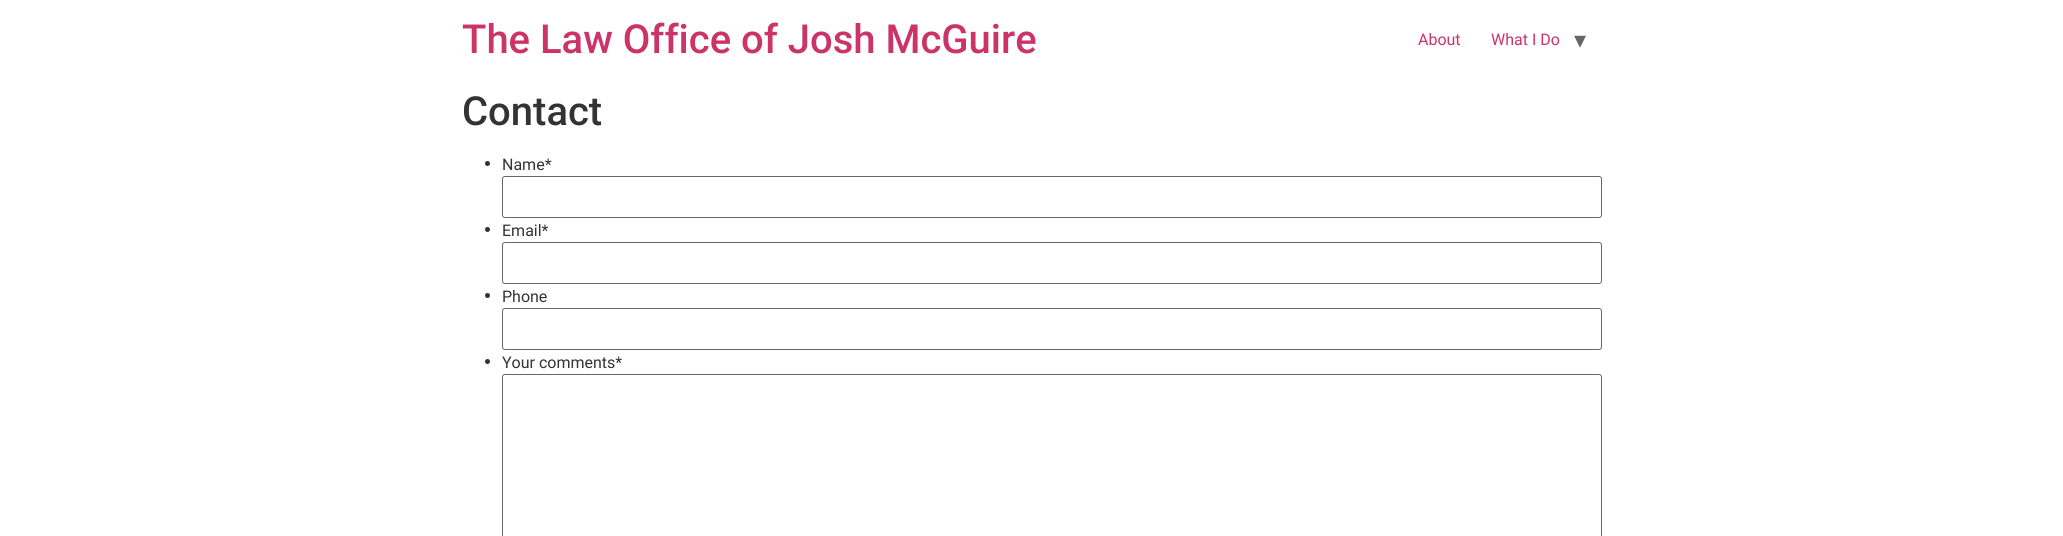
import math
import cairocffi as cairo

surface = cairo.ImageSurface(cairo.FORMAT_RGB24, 2063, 536)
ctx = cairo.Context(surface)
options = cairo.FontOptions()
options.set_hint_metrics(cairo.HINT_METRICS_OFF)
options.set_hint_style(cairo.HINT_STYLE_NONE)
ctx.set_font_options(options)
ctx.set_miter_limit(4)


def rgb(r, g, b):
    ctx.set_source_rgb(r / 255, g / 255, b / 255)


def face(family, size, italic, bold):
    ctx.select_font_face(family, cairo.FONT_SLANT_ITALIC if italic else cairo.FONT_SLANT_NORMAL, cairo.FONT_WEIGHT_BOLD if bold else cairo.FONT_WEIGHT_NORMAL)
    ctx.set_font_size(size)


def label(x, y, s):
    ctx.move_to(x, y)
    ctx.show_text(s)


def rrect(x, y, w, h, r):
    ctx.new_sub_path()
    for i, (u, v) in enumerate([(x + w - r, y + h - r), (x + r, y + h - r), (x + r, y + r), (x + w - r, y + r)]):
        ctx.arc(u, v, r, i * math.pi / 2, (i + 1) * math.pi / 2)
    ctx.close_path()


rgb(255, 255, 255)
ctx.paint()
face('Roboto Medium', 40, 0, 0)
rgb(204, 51, 102)
label(462, 53, 'The Law Office of Josh McGuire')
face('Roboto', 16, 0, 0)
label(1418, 45, 'About')
label(1491, 45, 'What I Do')
face('DejaVu Sans', 24, 0, 0)
rgb(102, 102, 102)
label(1574, 48, '▾')
face('Roboto Medium', 40, 0, 0)
rgb(51, 51, 51)
label(462, 125, 'Contact')
ctx.new_path()
ctx.arc(487.5, 163.5, 2.5, 0, 2 * math.pi)
ctx.fill()
face('Roboto', 16, 0, 0)
label(502, 170, 'Name*')
rrect(502.5, 176.5, 1099, 41, 2.5)
rgb(102, 102, 102)
ctx.set_line_width(1)
ctx.stroke()
rgb(51, 51, 51)
ctx.arc(487.5, 229.5, 2.5, 0, 2 * math.pi)
ctx.fill()
label(502, 236, 'Email*')
rrect(502.5, 242.5, 1099, 41, 2.5)
rgb(102, 102, 102)
ctx.stroke()
rgb(51, 51, 51)
ctx.arc(487.5, 295.5, 2.5, 0, 2 * math.pi)
ctx.fill()
label(502, 302, 'Phone')
rrect(502.5, 308.5, 1099, 41, 2.5)
rgb(102, 102, 102)
ctx.stroke()
rgb(51, 51, 51)
ctx.arc(487.5, 361.5, 2.5, 0, 2 * math.pi)
ctx.fill()
label(502, 368, 'Your comments*')
rrect(502.5, 374.5, 1099, 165, 2.5)
rgb(102, 102, 102)
ctx.stroke()
surface.write_to_png('render.png')
